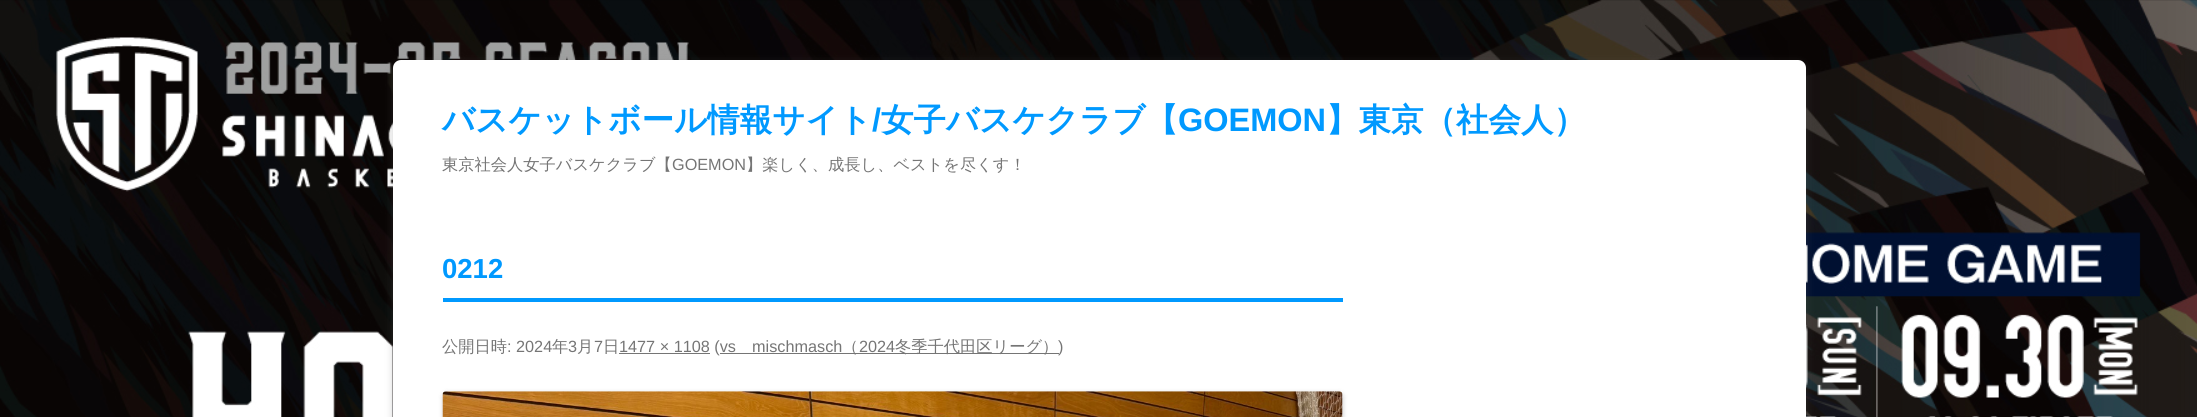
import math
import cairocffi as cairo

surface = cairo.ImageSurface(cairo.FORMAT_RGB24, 2197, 417)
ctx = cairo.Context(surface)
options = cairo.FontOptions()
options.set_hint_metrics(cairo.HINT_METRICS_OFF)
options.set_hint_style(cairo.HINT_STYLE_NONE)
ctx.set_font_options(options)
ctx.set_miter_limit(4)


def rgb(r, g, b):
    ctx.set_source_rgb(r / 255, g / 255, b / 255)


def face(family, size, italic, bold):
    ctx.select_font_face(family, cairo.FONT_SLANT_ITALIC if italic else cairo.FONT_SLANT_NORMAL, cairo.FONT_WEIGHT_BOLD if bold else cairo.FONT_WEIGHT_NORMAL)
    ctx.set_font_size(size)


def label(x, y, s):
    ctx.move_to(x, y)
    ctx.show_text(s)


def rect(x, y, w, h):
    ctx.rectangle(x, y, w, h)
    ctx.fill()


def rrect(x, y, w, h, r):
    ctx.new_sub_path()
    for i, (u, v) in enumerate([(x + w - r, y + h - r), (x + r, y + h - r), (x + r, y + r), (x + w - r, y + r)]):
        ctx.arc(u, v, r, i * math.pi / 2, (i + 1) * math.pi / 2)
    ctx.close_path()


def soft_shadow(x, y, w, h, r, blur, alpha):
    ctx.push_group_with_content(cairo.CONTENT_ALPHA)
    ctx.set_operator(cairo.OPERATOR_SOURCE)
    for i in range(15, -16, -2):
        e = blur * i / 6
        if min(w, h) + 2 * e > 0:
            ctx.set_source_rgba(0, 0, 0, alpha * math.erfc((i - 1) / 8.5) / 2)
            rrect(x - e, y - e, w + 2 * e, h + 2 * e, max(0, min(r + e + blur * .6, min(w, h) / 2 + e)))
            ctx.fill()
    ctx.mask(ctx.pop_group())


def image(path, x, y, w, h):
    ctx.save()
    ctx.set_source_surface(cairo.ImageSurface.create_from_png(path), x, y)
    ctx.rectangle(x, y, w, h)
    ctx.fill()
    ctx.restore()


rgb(255, 255, 255)
ctx.paint()
image('image0.png', 0, 0, 2197, 417)
rgb(100, 100, 100)
soft_shadow(393, 63, 1413, 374, 8, 4, 0.3)
rgb(255, 255, 255)
rrect(393, 60, 1413, 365, 8)
ctx.fill()
face('WenQuanYi Zen Hei', 32.5, 0, 1)
rgb(0, 153, 255)
label(442, 131, 'バスケットボール情報サイト')
face('Liberation Sans', 32.5, 0, 1)
label(872, 131, '/')
face('WenQuanYi Zen Hei', 32.5, 0, 1)
label(881, 131, '女子バスケクラブ【')
face('Liberation Sans', 32.5, 0, 1)
label(1178, 131, 'GOEMON')
face('WenQuanYi Zen Hei', 32.5, 0, 1)
label(1326, 131, '】東京（社会人）')
face('WenQuanYi Zen Hei Medium', 16.25, 0, 0)
rgb(117, 117, 117)
label(442, 170, '東京社会人女子バスケクラブ【')
face('Liberation Sans', 16.25, 0, 0)
label(672, 170, 'GOEMON')
face('WenQuanYi Zen Hei Medium', 16.25, 0, 0)
label(746, 170, '】楽しく、成長し、ベストを尽くす！')
rgb(0, 153, 255)
rect(443, 298, 900, 4)
face('Liberation Sans', 27.5, 0, 1)
label(442, 278, '0212')
face('WenQuanYi Zen Hei Medium', 16.25, 0, 0)
rgb(117, 117, 117)
label(442, 352, '公開日時')
face('Liberation Sans', 16.25, 0, 0)
label(507, 352, ': 2024')
face('WenQuanYi Zen Hei Medium', 16.25, 0, 0)
label(552, 352, '年')
face('Liberation Sans', 16.25, 0, 0)
label(568, 352, '3')
face('WenQuanYi Zen Hei Medium', 16.25, 0, 0)
label(577, 352, '月')
face('Liberation Sans', 16.25, 0, 0)
label(594, 352, '7')
face('WenQuanYi Zen Hei Medium', 16.25, 0, 0)
label(603, 352, '日')
rect(619, 353, 91, 1)
face('Liberation Sans', 16.25, 0, 0)
label(619, 352, '1477 × 1108 (vs')
label(752, 352, 'mischmasch')
rect(720, 353, 339, 1)
face('WenQuanYi Zen Hei Medium', 16.25, 0, 0)
label(842, 352, '（')
face('Liberation Sans', 16.25, 0, 0)
label(859, 352, '2024')
face('WenQuanYi Zen Hei Medium', 16.25, 0, 0)
label(895, 352, '冬季千代田区リーグ）')
face('Liberation Sans', 16.25, 0, 0)
label(1058, 352, ')')
rgb(0, 0, 0)
soft_shadow(443, 393, 900, 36, 4, 2.5, 0.2)
image('image1.png', 442, 391, 901, 26)
surface.write_to_png('render.png')
